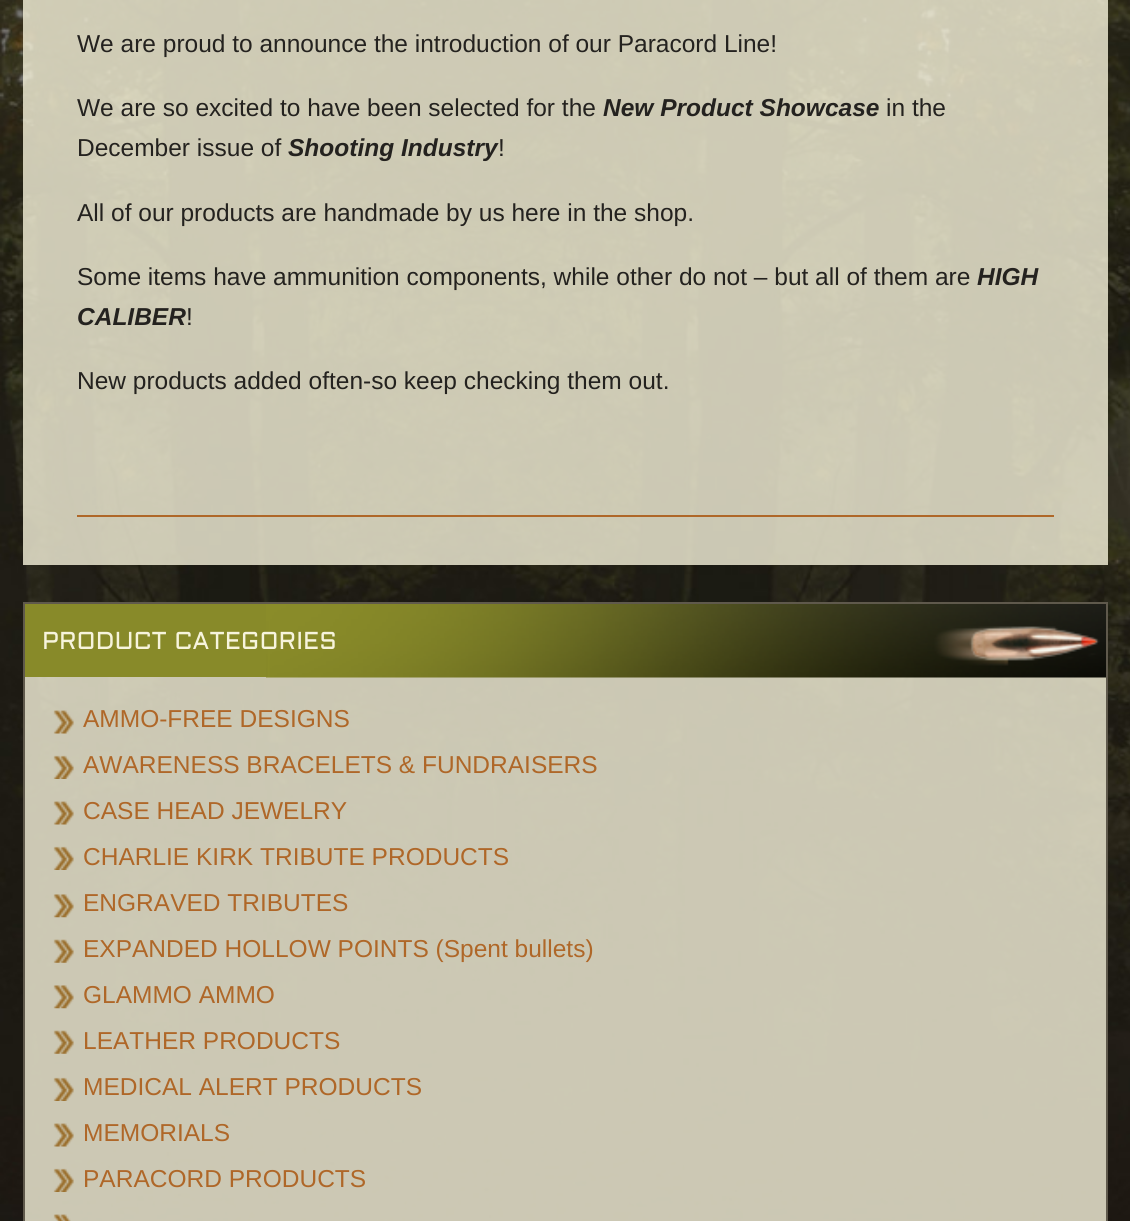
import math
import cairocffi as cairo

surface = cairo.ImageSurface(cairo.FORMAT_RGB24, 1130, 1221)
ctx = cairo.Context(surface)
options = cairo.FontOptions()
options.set_hint_metrics(cairo.HINT_METRICS_OFF)
options.set_hint_style(cairo.HINT_STYLE_NONE)
ctx.set_font_options(options)
ctx.set_miter_limit(4)


def rgb(r, g, b):
    ctx.set_source_rgb(r / 255, g / 255, b / 255)


def face(family, size, italic, bold):
    ctx.select_font_face(family, cairo.FONT_SLANT_ITALIC if italic else cairo.FONT_SLANT_NORMAL, cairo.FONT_WEIGHT_BOLD if bold else cairo.FONT_WEIGHT_NORMAL)
    ctx.set_font_size(size)


def label(x, y, s):
    ctx.move_to(x, y)
    ctx.show_text(s)


def rect(x, y, w, h):
    ctx.rectangle(x, y, w, h)
    ctx.fill()


def image(path, x, y, w, h):
    ctx.save()
    ctx.set_source_surface(cairo.ImageSurface.create_from_png(path), x, y)
    ctx.rectangle(x, y, w, h)
    ctx.fill()
    ctx.restore()


rgb(255, 255, 255)
ctx.paint()
image('image0.png', 0, 0, 1130, 1221)
ctx.set_source_rgba(0.969, 0.957, 0.863, 0.8)
rect(23, 0, 1085, 565)
rgb(175, 103, 40)
rect(77, 515, 977, 2)
face('Liberation Sans', 24.5, 0, 0)
rgb(36, 34, 31)
label(77, 52, 'We are proud to announce the introduction of our Paracord Line!')
label(77, 116, 'We are so excited to have been selected for the')
face('Liberation Sans', 24.5, 1, 1)
label(603, 116, 'New Product Showcase')
face('Liberation Sans', 24.5, 0, 0)
label(886, 116, 'in the')
label(77, 156, 'December issue of')
face('Liberation Sans', 24.5, 1, 1)
label(288, 156, 'Shooting Industry')
face('Liberation Sans', 24.5, 0, 0)
label(498, 156, '!')
label(77, 221, 'All of our products are handmade by us here in the shop.')
label(77, 285, 'Some items have ammunition components, while other do not – but all of them are')
face('Liberation Sans', 24.5, 1, 1)
label(977, 285, 'HIGH')
label(77, 325, 'CALIBER')
face('Liberation Sans', 24.5, 0, 0)
label(186, 325, '!')
label(77, 389, 'New products added often-so keep checking them out.')
ctx.set_source_rgba(0.969, 0.957, 0.863, 0.8)
rect(25, 677, 1081, 544)
rgb(95, 89, 76)
rect(23, 602, 1085, 2)
rect(1106, 602, 2, 619)
rect(23, 602, 2, 619)
rgb(136, 138, 41)
rect(25, 604, 241, 73)
image('image1.png', 266, 604, 840, 74)
face('Aldrich', 24.5, 0, 0)
rgb(247, 244, 220)
label(42, 649, 'PRODUCT CATEGORIES')
image('image2.png', 53, 710, 21, 24)
face('Liberation Sans', 24.5, 0, 0)
rgb(175, 103, 40)
label(83, 727, 'AMMO-FREE DESIGNS')
image('image3.png', 53, 755, 21, 24)
label(83, 773, 'AWARENESS BRACELETS & FUNDRAISERS')
image('image4.png', 53, 801, 21, 24)
label(83, 819, 'CASE HEAD JEWELRY')
image('image5.png', 53, 846, 21, 24)
label(83, 865, 'CHARLIE KIRK TRIBUTE PRODUCTS')
image('image6.png', 53, 894, 21, 24)
label(83, 911, 'ENGRAVED TRIBUTES')
image('image7.png', 53, 939, 21, 24)
label(83, 957, 'EXPANDED HOLLOW POINTS (Spent bullets)')
image('image8.png', 53, 985, 21, 24)
label(83, 1003, 'GLAMMO AMMO')
image('image9.png', 53, 1030, 21, 24)
label(83, 1049, 'LEATHER PRODUCTS')
image('image10.png', 53, 1077, 21, 24)
label(83, 1095, 'MEDICAL ALERT PRODUCTS')
image('image11.png', 53, 1123, 21, 24)
label(83, 1141, 'MEMORIALS')
image('image12.png', 53, 1168, 21, 24)
label(83, 1187, 'PARACORD PRODUCTS')
image('image13.png', 53, 1214, 18, 7)
surface.write_to_png('render.png')
